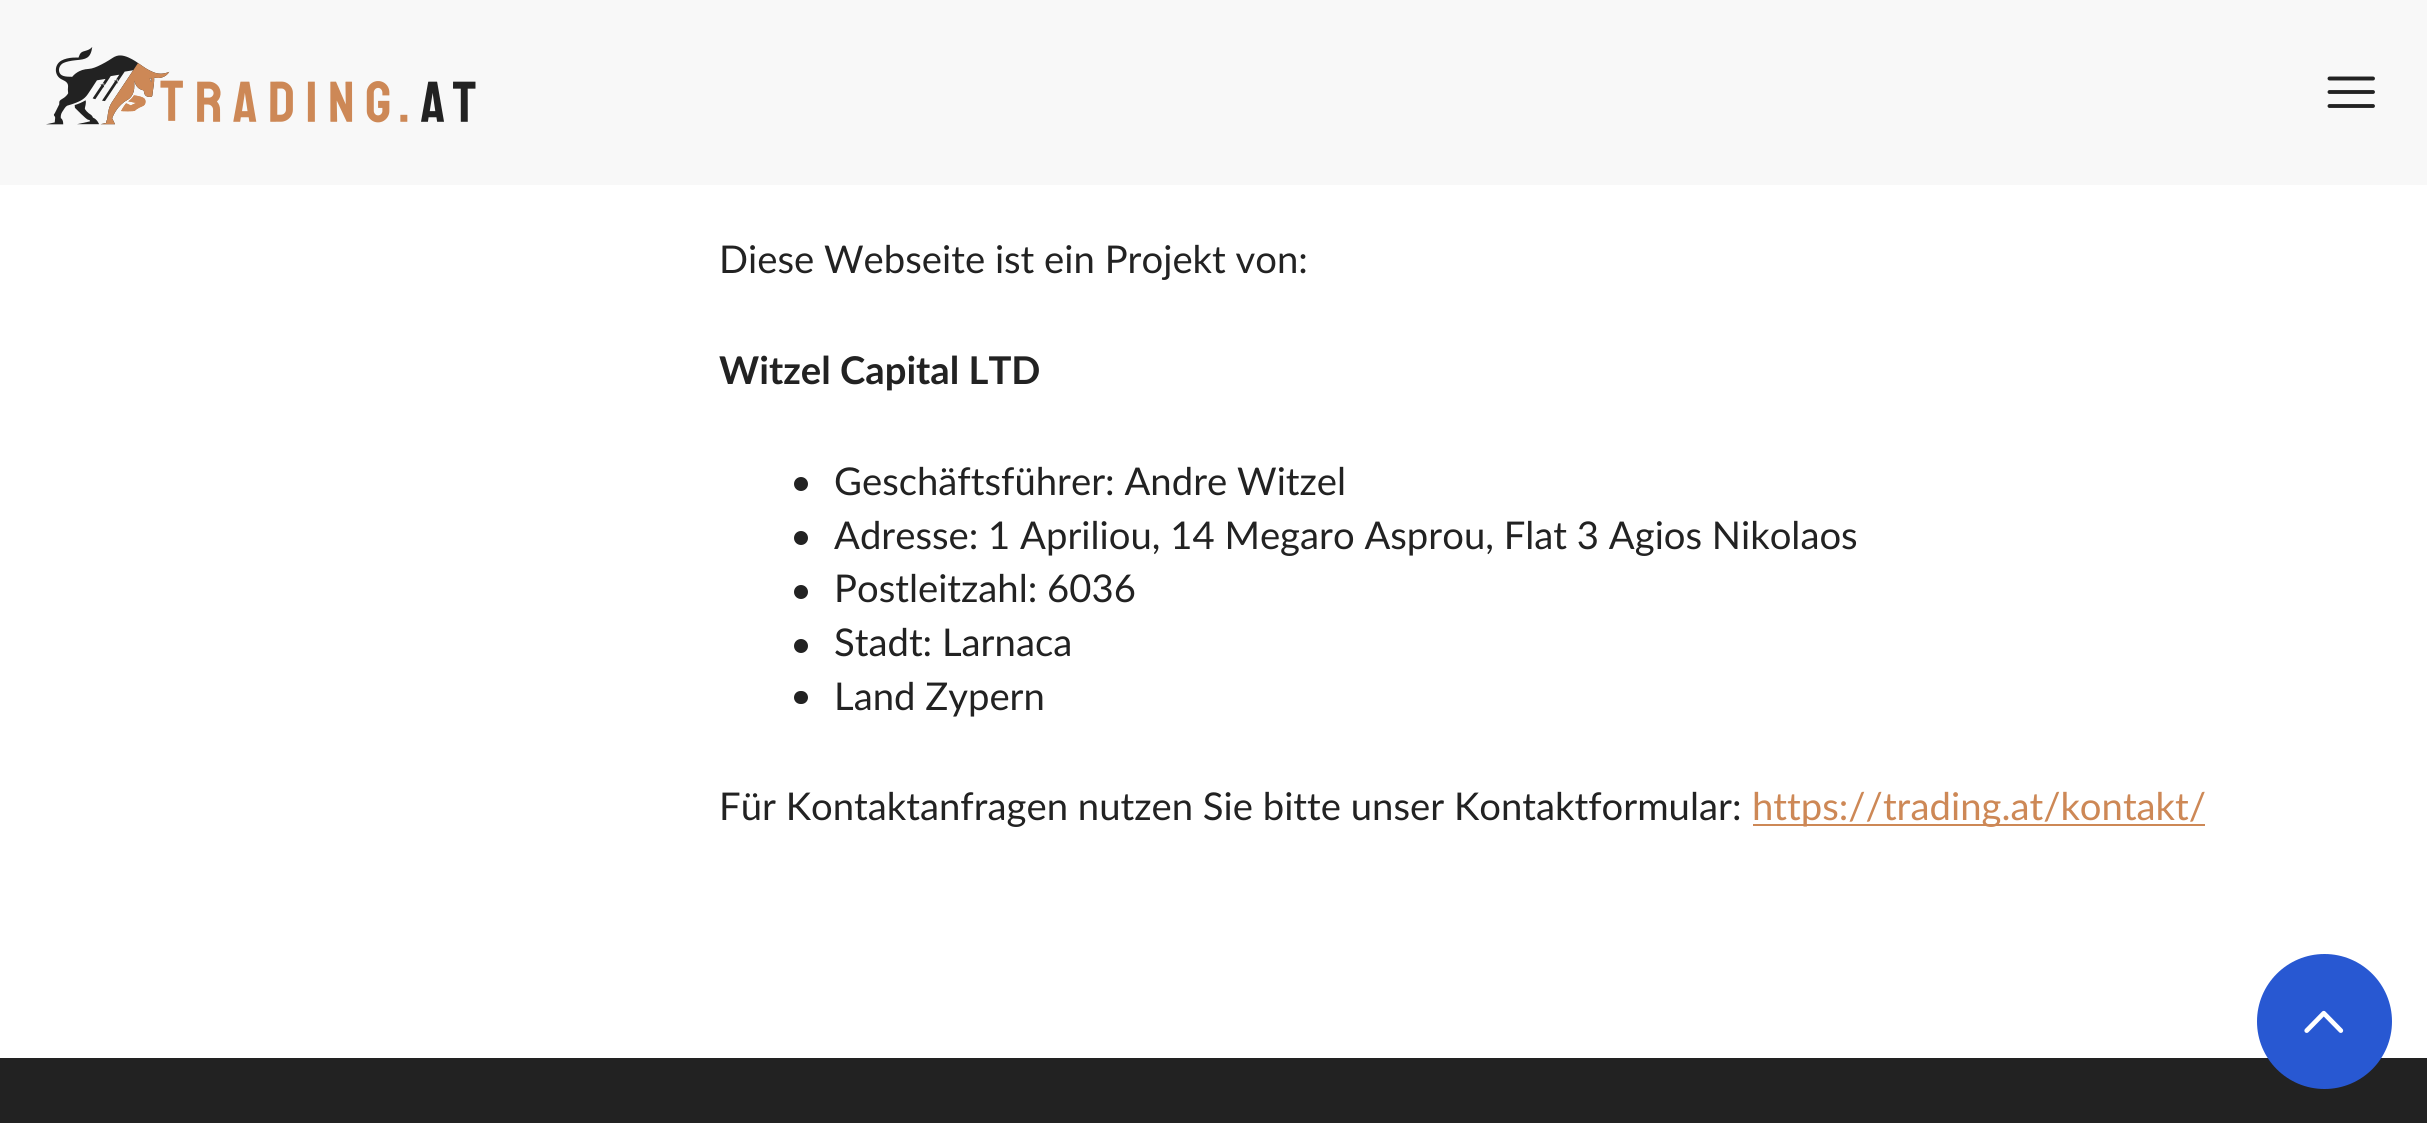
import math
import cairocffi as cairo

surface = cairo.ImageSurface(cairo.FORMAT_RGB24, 2427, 1123)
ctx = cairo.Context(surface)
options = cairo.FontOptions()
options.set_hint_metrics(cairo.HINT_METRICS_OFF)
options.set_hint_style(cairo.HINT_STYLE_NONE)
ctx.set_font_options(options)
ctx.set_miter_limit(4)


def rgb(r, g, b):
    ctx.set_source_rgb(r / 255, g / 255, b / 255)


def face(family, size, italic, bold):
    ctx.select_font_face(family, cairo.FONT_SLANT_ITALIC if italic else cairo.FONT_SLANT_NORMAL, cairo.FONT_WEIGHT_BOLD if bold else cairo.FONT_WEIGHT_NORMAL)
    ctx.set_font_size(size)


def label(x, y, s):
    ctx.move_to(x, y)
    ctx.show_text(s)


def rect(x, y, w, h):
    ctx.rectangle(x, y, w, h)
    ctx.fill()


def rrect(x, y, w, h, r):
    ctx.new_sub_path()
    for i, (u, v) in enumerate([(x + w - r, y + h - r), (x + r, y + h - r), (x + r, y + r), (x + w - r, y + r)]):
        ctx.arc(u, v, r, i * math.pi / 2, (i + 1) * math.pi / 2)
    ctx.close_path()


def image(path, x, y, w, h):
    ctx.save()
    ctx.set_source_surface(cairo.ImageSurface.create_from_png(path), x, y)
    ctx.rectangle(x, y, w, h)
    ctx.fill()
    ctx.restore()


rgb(255, 255, 255)
ctx.paint()
rgb(248, 248, 248)
rect(0, 0, 2427, 185)
image('image0.png', 46, 47, 430, 78)
ctx.new_path()
ctx.move_to(2329.5, 78.5)
ctx.line_to(2373, 78.5)
ctx.move_to(2329.5, 92)
ctx.line_to(2373, 92)
ctx.move_to(2329.5, 106)
ctx.line_to(2373, 106)
rgb(34, 34, 34)
ctx.set_line_width(3.9)
ctx.set_line_cap(cairo.LINE_CAP_ROUND)
ctx.set_line_join(cairo.LINE_JOIN_ROUND)
ctx.stroke()
face('Lato', 38.25, 0, 0)
label(719, 273, 'Diese Webseite ist ein Projekt von:')
face('Lato', 38.25, 0, 1)
label(719, 384, 'Witzel Capital LTD')
ctx.new_path()
ctx.arc(801, 484, 7, 0, 2 * math.pi)
ctx.fill()
face('Lato', 38.25, 0, 0)
label(834, 495, 'Geschäftsführer: Andre Witzel')
ctx.new_path()
ctx.arc(801, 538, 7, 0, 2 * math.pi)
ctx.fill()
label(834, 549, 'Adresse: 1 Apriliou, 14 Megaro Asprou, Flat 3 Agios Nikolaos')
ctx.new_path()
ctx.arc(801, 592, 7, 0, 2 * math.pi)
ctx.fill()
label(834, 602, 'Postleitzahl: 6036')
ctx.new_path()
ctx.arc(801, 646, 7, 0, 2 * math.pi)
ctx.fill()
label(834, 656, 'Stadt: Larnaca')
rrect(794, 691, 14, 13, 6.5)
ctx.fill()
label(834, 710, 'Land Zypern')
label(719, 820, 'Für Kontaktanfragen nutzen Sie bitte unser Kontaktformular:')
rgb(205, 136, 86)
rect(1753, 824, 452, 2)
label(1752, 820, 'https://trading.at/kontakt/')
rgb(34, 34, 34)
rect(0, 1058, 2427, 65)
rgb(40, 88, 210)
ctx.new_path()
ctx.arc(2324.5, 1021.5, 67.5, 0, 2 * math.pi)
ctx.fill()
image('image1.png', 2304, 1010, 40, 23)
surface.write_to_png('render.png')
